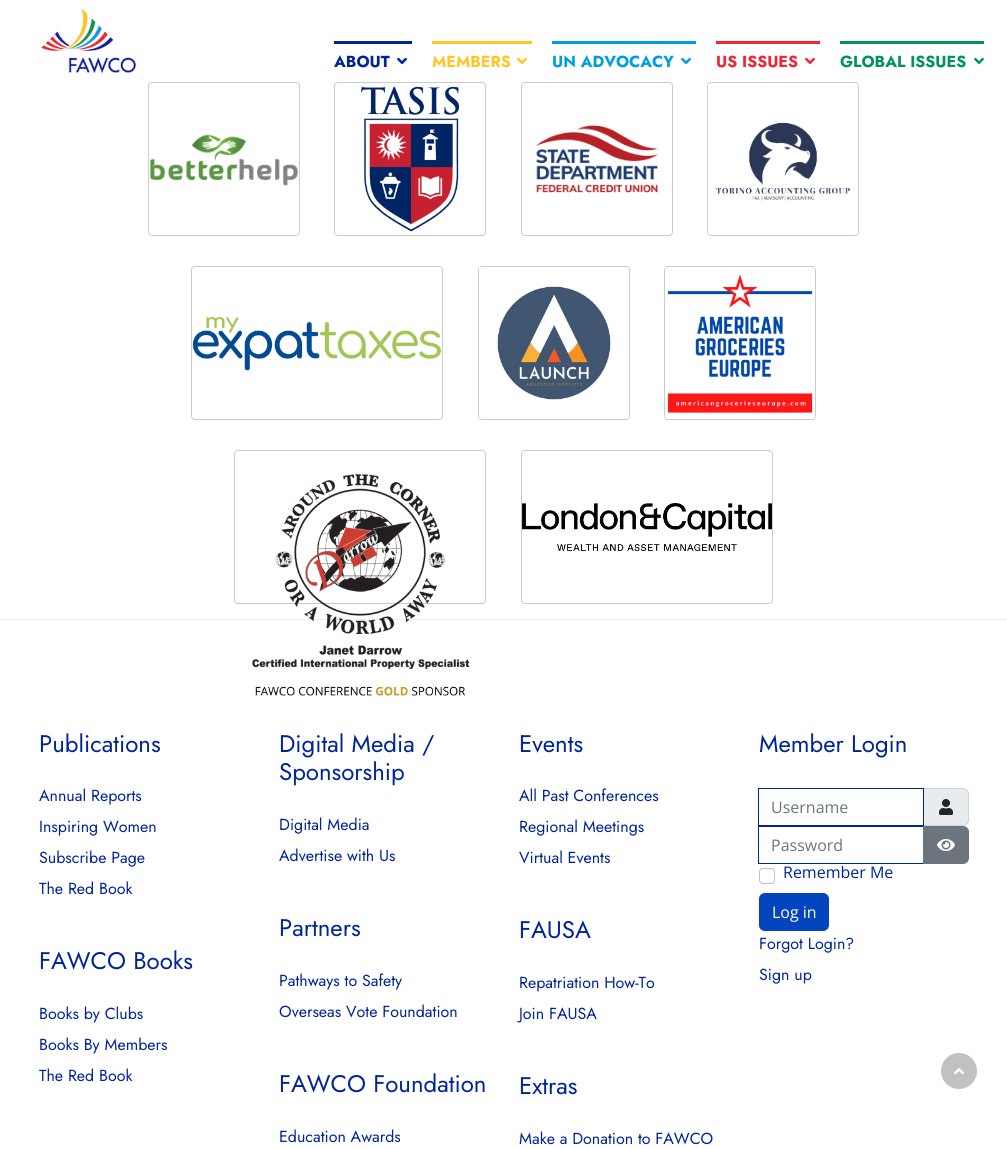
import math
import cairocffi as cairo

surface = cairo.ImageSurface(cairo.FORMAT_RGB24, 1007, 1149)
ctx = cairo.Context(surface)
options = cairo.FontOptions()
options.set_hint_metrics(cairo.HINT_METRICS_OFF)
options.set_hint_style(cairo.HINT_STYLE_NONE)
ctx.set_font_options(options)
ctx.set_miter_limit(4)


def rgb(r, g, b):
    ctx.set_source_rgb(r / 255, g / 255, b / 255)


def face(family, size, italic, bold):
    ctx.select_font_face(family, cairo.FONT_SLANT_ITALIC if italic else cairo.FONT_SLANT_NORMAL, cairo.FONT_WEIGHT_BOLD if bold else cairo.FONT_WEIGHT_NORMAL)
    ctx.set_font_size(size)


def label(x, y, s):
    ctx.move_to(x, y)
    ctx.show_text(s)


def rect(x, y, w, h):
    ctx.rectangle(x, y, w, h)
    ctx.fill()


def rrect(x, y, w, h, r):
    ctx.new_sub_path()
    for i, (u, v) in enumerate([(x + w - r, y + h - r), (x + r, y + h - r), (x + r, y + r), (x + w - r, y + r)]):
        ctx.arc(u, v, r, i * math.pi / 2, (i + 1) * math.pi / 2)
    ctx.close_path()


def image(path, x, y, w, h):
    ctx.save()
    ctx.set_source_surface(cairo.ImageSurface.create_from_png(path), x, y)
    ctx.rectangle(x, y, w, h)
    ctx.fill()
    ctx.restore()


rgb(255, 255, 255)
ctx.paint()
image('image0.png', 41, 8, 96, 66)
rgb(0, 37, 153)
rect(334, 41, 78, 3)
face('Jost', 16, 0, 1)
label(334, 67, 'ABOUT')
image('image1.png', 397, 57, 10, 8)
rgb(255, 198, 39)
rect(432, 41, 100, 3)
label(432, 67, 'MEMBERS')
image('image2.png', 517, 57, 10, 8)
rgb(0, 157, 225)
rect(552, 41, 144, 3)
label(552, 67, 'UN ADVOCACY')
image('image3.png', 681, 57, 10, 8)
rgb(243, 37, 52)
rect(716, 41, 104, 3)
label(716, 67, 'US ISSUES')
image('image4.png', 805, 57, 10, 8)
rgb(0, 148, 90)
rect(840, 41, 144, 3)
label(840, 67, 'GLOBAL ISSUES')
image('image5.png', 974, 57, 10, 8)
rrect(148.5, 82.5, 151, 153, 3.5)
rgb(204, 204, 204)
ctx.set_line_width(1)
ctx.stroke()
image('image6.png', 150, 134, 149, 52)
rrect(334.5, 82.5, 151, 153, 3.5)
ctx.stroke()
image('image7.png', 361, 86, 99, 146)
rrect(521.5, 82.5, 151, 153, 3.5)
ctx.stroke()
image('image8.png', 536, 125, 122, 68)
rrect(707.5, 82.5, 151, 153, 3.5)
ctx.stroke()
image('image9.png', 708, 84, 150, 150)
rrect(191.5, 266.5, 251, 153, 3.5)
ctx.stroke()
image('image10.png', 192, 316, 249, 55)
rrect(478.5, 266.5, 151, 153, 3.5)
ctx.stroke()
image('image11.png', 479, 268, 150, 150)
rrect(664.5, 266.5, 151, 153, 3.5)
ctx.stroke()
image('image12.png', 665, 268, 150, 150)
rrect(234.5, 450.5, 251, 153, 3.5)
ctx.stroke()
rgb(238, 238, 238)
rect(0, 619, 1007, 1)
image('image13.png', 252, 474, 218, 222)
rrect(521.5, 450.5, 251, 153, 3.5)
rgb(204, 204, 204)
ctx.stroke()
image('image14.png', 522, 503, 250, 48)
face('Jost', 24, 0, 0)
rgb(0, 37, 153)
label(39, 752, 'Publications')
face('Jost', 16, 0, 0)
label(39, 801, 'Annual Reports')
label(39, 832, 'Inspiring Women')
label(39, 863, 'Subscribe Page')
label(39, 894, 'The Red Book')
face('Jost', 24, 0, 0)
label(39, 969, 'FAWCO Books')
face('Jost', 16, 0, 0)
label(39, 1019, 'Books by Clubs')
label(39, 1050, 'Books By Members')
label(39, 1081, 'The Red Book')
face('Jost', 24, 0, 0)
label(279, 752, 'Digital Media /')
label(279, 780, 'Sponsorship')
face('Jost', 16, 0, 0)
label(279, 830, 'Digital Media')
label(279, 861, 'Advertise with Us')
face('Jost', 24, 0, 0)
label(279, 936, 'Partners')
face('Jost', 16, 0, 0)
label(279, 986, 'Pathways to Safety')
label(279, 1017, 'Overseas Vote Foundation')
face('Jost', 24, 0, 0)
label(279, 1092, 'FAWCO Foundation')
face('Jost', 16, 0, 0)
label(279, 1142, 'Education Awards')
face('Jost', 24, 0, 0)
label(519, 752, 'Events')
face('Jost', 16, 0, 0)
label(519, 801, 'All Past Conferences')
label(519, 832, 'Regional Meetings')
label(519, 863, 'Virtual Events')
face('Jost', 24, 0, 0)
label(519, 938, 'FAUSA')
face('Jost', 16, 0, 0)
label(519, 988, 'Repatriation How-To')
label(519, 1019, 'Join FAUSA')
face('Jost', 24, 0, 0)
label(519, 1094, 'Extras')
face('Jost', 16, 0, 0)
label(519, 1144, 'Make a Donation to FAWCO')
face('Jost', 24, 0, 0)
label(759, 752, 'Member Login')
rgb(233, 236, 239)
ctx.new_path()
ctx.move_to(923.5, 788.5)
ctx.line_to(963, 788.5)
ctx.curve_to(966, 788.5, 968.5, 791, 968.5, 794)
ctx.line_to(968.5, 820)
ctx.curve_to(968.5, 823, 966, 825.5, 963, 825.5)
ctx.line_to(923.5, 825.5)
ctx.close_path()
ctx.fill_preserve()
rgb(206, 212, 218)
ctx.stroke()
ctx.rectangle(758.5, 788.5, 165, 37)
rgb(0, 37, 153)
ctx.stroke()
face('Open Sans', 16, 0, 0)
rgb(108, 117, 125)
label(771, 813, 'Username')
image('image15.png', 939, 799, 14, 16)
ctx.rectangle(758.5, 826.5, 165, 37)
rgb(0, 37, 153)
ctx.stroke()
rgb(108, 117, 125)
label(771, 851, 'Password')
ctx.new_path()
ctx.move_to(923.5, 826.5)
ctx.line_to(963, 826.5)
ctx.curve_to(966, 826.5, 968.5, 829, 968.5, 832)
ctx.line_to(968.5, 858)
ctx.curve_to(968.5, 861, 966, 863.5, 963, 863.5)
ctx.line_to(923.5, 863.5)
ctx.close_path()
ctx.fill_preserve()
ctx.stroke()
image('image16.png', 937, 839, 18, 12)
rrect(759.5, 868.5, 15, 15, 3.5)
rgb(191, 191, 191)
ctx.stroke()
rgb(0, 37, 153)
label(783, 878, 'Remember Me')
rgb(3, 69, 191)
rrect(759.5, 893.5, 69, 37, 5.5)
ctx.fill_preserve()
ctx.stroke()
rgb(255, 255, 255)
label(772, 918, 'Log in')
face('Jost', 16, 0, 0)
rgb(0, 37, 153)
label(759, 949, 'Forgot Login?')
label(759, 980, 'Sign up')
rgb(193, 193, 193)
ctx.new_path()
ctx.arc(959, 1071, 18, 0, 2 * math.pi)
ctx.fill()
image('image17.png', 954, 1068, 10, 7)
surface.write_to_png('render.png')
